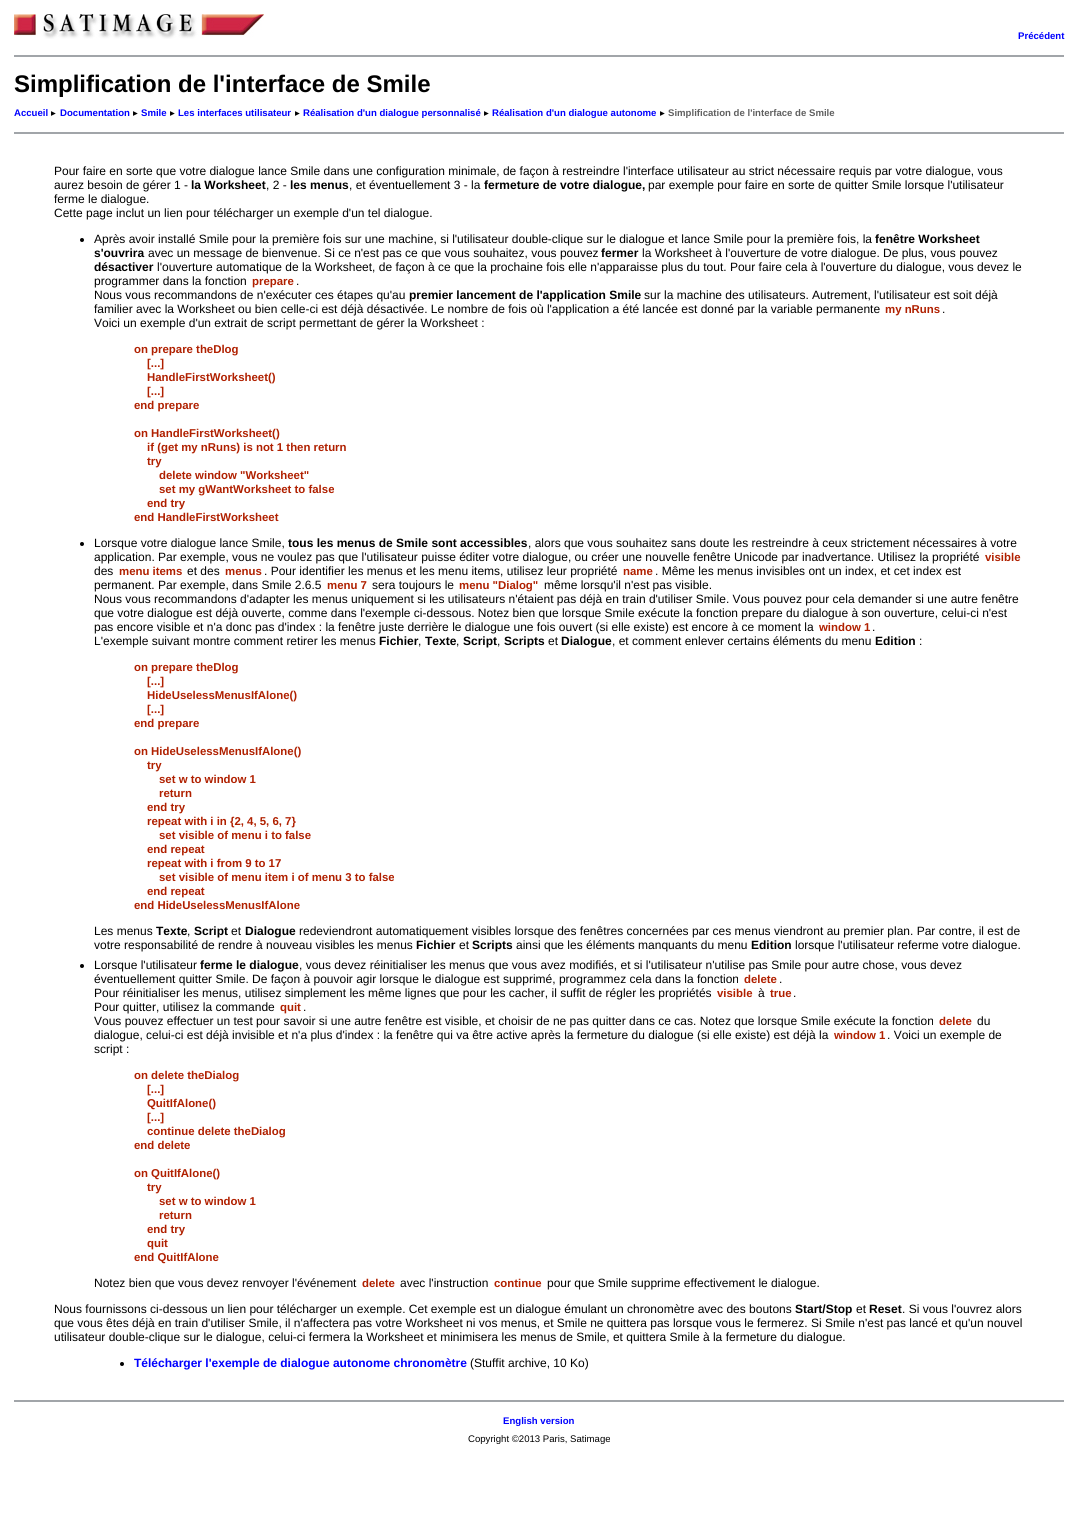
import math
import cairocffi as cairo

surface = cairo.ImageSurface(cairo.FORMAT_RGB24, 1078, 1517)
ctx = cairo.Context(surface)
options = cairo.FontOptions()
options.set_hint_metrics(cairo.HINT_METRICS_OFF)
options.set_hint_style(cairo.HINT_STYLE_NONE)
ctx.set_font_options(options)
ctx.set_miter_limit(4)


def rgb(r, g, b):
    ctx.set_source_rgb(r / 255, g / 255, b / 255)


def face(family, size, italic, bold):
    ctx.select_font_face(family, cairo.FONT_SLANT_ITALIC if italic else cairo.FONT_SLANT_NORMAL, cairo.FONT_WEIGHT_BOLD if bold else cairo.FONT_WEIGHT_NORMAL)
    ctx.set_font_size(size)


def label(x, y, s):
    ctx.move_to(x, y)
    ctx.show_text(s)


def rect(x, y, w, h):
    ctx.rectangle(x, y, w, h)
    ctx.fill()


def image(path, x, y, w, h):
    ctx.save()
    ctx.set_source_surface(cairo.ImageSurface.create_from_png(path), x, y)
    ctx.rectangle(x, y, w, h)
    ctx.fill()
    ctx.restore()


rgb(255, 255, 255)
ctx.paint()
image('image0.png', 14, 14, 250, 25)
face('Liberation Sans', 9.6, 0, 1)
rgb(0, 0, 255)
label(1018, 39, 'Précédent')
rgb(161, 165, 169)
rect(14, 55, 1050, 2)
face('Liberation Sans', 24, 0, 1)
rgb(0, 0, 0)
label(14, 92, 'Simplification de l\'interface de Smile')
face('Liberation Sans', 9.6, 0, 1)
rgb(0, 0, 255)
label(14, 116, 'Accueil')
face('DejaVu Sans', 9.6, 0, 0)
rgb(0, 0, 0)
label(51, 116, '▸')
face('Liberation Sans', 9.6, 0, 1)
rgb(0, 0, 255)
label(60, 116, 'Documentation')
face('DejaVu Sans', 9.6, 0, 0)
rgb(0, 0, 0)
label(133, 116, '▸')
face('Liberation Sans', 9.6, 0, 1)
rgb(0, 0, 255)
label(141, 116, 'Smile')
face('DejaVu Sans', 9.6, 0, 0)
rgb(0, 0, 0)
label(170, 116, '▸')
face('Liberation Sans', 9.6, 0, 1)
rgb(0, 0, 255)
label(178, 116, 'Les interfaces utilisateur')
face('DejaVu Sans', 9.6, 0, 0)
rgb(0, 0, 0)
label(295, 116, '▸')
face('Liberation Sans', 9.6, 0, 1)
rgb(0, 0, 255)
label(303, 116, 'Réalisation d\'un dialogue personnalisé')
face('DejaVu Sans', 9.6, 0, 0)
rgb(0, 0, 0)
label(484, 116, '▸')
face('Liberation Sans', 9.6, 0, 1)
rgb(0, 0, 255)
label(492, 116, 'Réalisation d\'un dialogue autonome')
face('DejaVu Sans', 9.6, 0, 0)
rgb(0, 0, 0)
label(660, 116, '▸')
face('Liberation Sans', 9.6, 0, 1)
rgb(96, 96, 96)
label(668, 116, 'Simplification de l\'interface de Smile')
rgb(161, 165, 169)
rect(14, 132, 1050, 2)
face('Liberation Sans', 12, 0, 0)
rgb(0, 0, 0)
label(54, 175, 'Pour faire en sorte que votre dialogue lance Smile dans une configuration minimale, de façon à restreindre l\'interface utilisateur au strict nécessaire requis par votre dialogue, vous')
label(54, 189, 'aurez besoin de gérer 1 -')
face('Liberation Sans', 12, 0, 1)
label(191, 189, 'la Worksheet')
face('Liberation Sans', 12, 0, 0)
label(266, 189, ', 2 -')
face('Liberation Sans', 12, 0, 1)
label(290, 189, 'les menus')
face('Liberation Sans', 12, 0, 0)
label(349, 189, ', et éventuellement 3 - la')
face('Liberation Sans', 12, 0, 1)
label(484, 189, 'fermeture de votre dialogue,')
face('Liberation Sans', 12, 0, 0)
label(648, 189, 'par exemple pour faire en sorte de quitter Smile lorsque l\'utilisateur')
label(54, 203, 'ferme le dialogue.')
label(54, 217, 'Cette page inclut un lien pour télécharger un exemple d\'un tel dialogue.')
ctx.new_path()
ctx.arc(82, 240, 2, 0, 2 * math.pi)
ctx.fill()
label(94, 243, 'Après avoir installé Smile pour la première fois sur une machine, si l\'utilisateur double-clique sur le dialogue et lance Smile pour la première fois, la')
face('Liberation Sans', 12, 0, 1)
label(875, 243, 'fenêtre Worksheet')
label(94, 257, 's\'ouvrira')
face('Liberation Sans', 12, 0, 0)
label(148, 257, 'avec un message de bienvenue. Si ce n\'est pas ce que vous souhaitez, vous pouvez')
face('Liberation Sans', 12, 0, 1)
label(601, 257, 'fermer')
face('Liberation Sans', 12, 0, 0)
label(642, 257, 'la Worksheet à l\'ouverture de votre dialogue. De plus, vous pouvez')
face('Liberation Sans', 12, 0, 1)
label(94, 271, 'désactiver')
face('Liberation Sans', 12, 0, 0)
label(157, 271, 'l\'ouverture automatique de la Worksheet, de façon à ce que la prochaine fois elle n\'apparaisse plus du tout. Pour faire cela à l\'ouverture du dialogue, vous devez le')
label(94, 285, 'programmer dans la fonction')
face('Liberation Sans', 11.4, 0, 1)
rgb(176, 32, 0)
label(252, 285, 'prepare')
face('Liberation Sans', 12, 0, 0)
rgb(0, 0, 0)
label(296, 285, '.')
label(94, 299, 'Nous vous recommandons de n\'exécuter ces étapes qu\'au')
face('Liberation Sans', 12, 0, 1)
label(409, 299, 'premier lancement de l\'application Smile')
face('Liberation Sans', 12, 0, 0)
label(644, 299, 'sur la machine des utilisateurs. Autrement, l\'utilisateur est soit déjà')
label(94, 313, 'familier avec la Worksheet ou bien celle-ci est déjà désactivée. Le nombre de fois où l\'application a été lancée est donné par la variable permanente')
face('Liberation Sans', 11.4, 0, 1)
rgb(176, 32, 0)
label(885, 313, 'my nRuns')
face('Liberation Sans', 12, 0, 0)
rgb(0, 0, 0)
label(942, 313, '.')
label(94, 327, 'Voici un exemple d\'un extrait de script permettant de gérer la Worksheet :')
face('Liberation Sans', 11.4, 0, 1)
rgb(176, 32, 0)
label(134, 353, 'on prepare theDlog')
label(147, 367, '[...]')
label(147, 381, 'HandleFirstWorksheet()')
label(147, 395, '[...]')
label(134, 409, 'end prepare')
label(134, 437, 'on HandleFirstWorksheet()')
label(147, 451, 'if (get my nRuns) is not 1 then return')
label(147, 465, 'try')
label(159, 479, 'delete window "Worksheet"')
label(159, 493, 'set my gWantWorksheet to false')
label(147, 507, 'end try')
label(134, 521, 'end HandleFirstWorksheet')
rgb(0, 0, 0)
ctx.new_path()
ctx.arc(82, 544, 2, 0, 2 * math.pi)
ctx.fill()
face('Liberation Sans', 12, 0, 0)
label(94, 547, 'Lorsque votre dialogue lance Smile,')
face('Liberation Sans', 12, 0, 1)
label(288, 547, 'tous les menus de Smile sont accessibles')
face('Liberation Sans', 12, 0, 0)
label(528, 547, ', alors que vous souhaitez sans doute les restreindre à ceux strictement nécessaires à votre')
label(94, 561, 'application. Par exemple, vous ne voulez pas que l\'utilisateur puisse éditer votre dialogue, ou créer une nouvelle fenêtre Unicode par inadvertance. Utilisez la propriété')
face('Liberation Sans', 11.4, 0, 1)
rgb(176, 32, 0)
label(985, 561, 'visible')
face('Liberation Sans', 12, 0, 0)
rgb(0, 0, 0)
label(94, 575, 'des')
face('Liberation Sans', 11.4, 0, 1)
rgb(176, 32, 0)
label(119, 575, 'menu items')
face('Liberation Sans', 12, 0, 0)
rgb(0, 0, 0)
label(187, 575, 'et des')
face('Liberation Sans', 11.4, 0, 1)
rgb(176, 32, 0)
label(225, 575, 'menus')
face('Liberation Sans', 12, 0, 0)
rgb(0, 0, 0)
label(264, 575, '. Pour identifier les menus et les menu items, utilisez leur propriété')
face('Liberation Sans', 11.4, 0, 1)
rgb(176, 32, 0)
label(623, 575, 'name')
face('Liberation Sans', 12, 0, 0)
rgb(0, 0, 0)
label(655, 575, '. Même les menus invisibles ont un index, et cet index est')
label(94, 589, 'permanent. Par exemple, dans Smile 2.6.5')
face('Liberation Sans', 11.4, 0, 1)
rgb(176, 32, 0)
label(327, 589, 'menu 7')
face('Liberation Sans', 12, 0, 0)
rgb(0, 0, 0)
label(372, 589, 'sera toujours le')
face('Liberation Sans', 11.4, 0, 1)
rgb(176, 32, 0)
label(459, 589, 'menu "Dialog"')
face('Liberation Sans', 12, 0, 0)
rgb(0, 0, 0)
label(544, 589, 'même lorsqu\'il n\'est pas visible.')
label(94, 603, 'Nous vous recommandons d\'adapter les menus uniquement si les utilisateurs n\'étaient pas déjà en train d\'utiliser Smile. Vous pouvez pour cela demander si une autre fenêtre')
label(94, 617, 'que votre dialogue est déjà ouverte, comme dans l\'exemple ci-dessous. Notez bien que lorsque Smile exécute la fonction prepare du dialogue à son ouverture, celui-ci n\'est')
label(94, 631, 'pas encore visible et n\'a donc pas d\'index : la fenêtre juste derrière le dialogue une fois ouvert (si elle existe) est encore à ce moment la')
face('Liberation Sans', 11.4, 0, 1)
rgb(176, 32, 0)
label(819, 631, 'window 1')
face('Liberation Sans', 12, 0, 0)
rgb(0, 0, 0)
label(872, 631, '.')
label(94, 645, 'L\'exemple suivant montre comment retirer les menus')
face('Liberation Sans', 12, 0, 1)
label(379, 645, 'Fichier')
face('Liberation Sans', 12, 0, 0)
label(418, 645, ',')
face('Liberation Sans', 12, 0, 1)
label(425, 645, 'Texte')
face('Liberation Sans', 12, 0, 0)
label(456, 645, ',')
face('Liberation Sans', 12, 0, 1)
label(463, 645, 'Script')
face('Liberation Sans', 12, 0, 0)
label(497, 645, ',')
face('Liberation Sans', 12, 0, 1)
label(504, 645, 'Scripts')
face('Liberation Sans', 12, 0, 0)
label(548, 645, 'et')
face('Liberation Sans', 12, 0, 1)
label(561, 645, 'Dialogue')
face('Liberation Sans', 12, 0, 0)
label(612, 645, ', et comment enlever certains éléments du menu')
face('Liberation Sans', 12, 0, 1)
label(875, 645, 'Edition')
face('Liberation Sans', 12, 0, 0)
label(919, 645, ':')
face('Liberation Sans', 11.4, 0, 1)
rgb(176, 32, 0)
label(134, 671, 'on prepare theDlog')
label(147, 685, '[...]')
label(147, 699, 'HideUselessMenusIfAlone()')
label(147, 713, '[...]')
label(134, 727, 'end prepare')
label(134, 755, 'on HideUselessMenusIfAlone()')
label(147, 769, 'try')
label(159, 783, 'set w to window 1')
label(159, 797, 'return')
label(147, 811, 'end try')
label(147, 825, 'repeat with i in {2, 4, 5, 6, 7}')
label(159, 839, 'set visible of menu i to false')
label(147, 853, 'end repeat')
label(147, 867, 'repeat with i from 9 to 17')
label(159, 881, 'set visible of menu item i of menu 3 to false')
label(147, 895, 'end repeat')
label(134, 909, 'end HideUselessMenusIfAlone')
face('Liberation Sans', 12, 0, 0)
rgb(0, 0, 0)
label(94, 935, 'Les menus')
face('Liberation Sans', 12, 0, 1)
label(156, 935, 'Texte')
face('Liberation Sans', 12, 0, 0)
label(187, 935, ',')
face('Liberation Sans', 12, 0, 1)
label(194, 935, 'Script')
face('Liberation Sans', 12, 0, 0)
label(231, 935, 'et')
face('Liberation Sans', 12, 0, 1)
label(245, 935, 'Dialogue')
face('Liberation Sans', 12, 0, 0)
label(299, 935, 'redeviendront automatiquement visibles lorsque des fenêtres concernées par ces menus viendront au premier plan. Par contre, il est de')
label(94, 949, 'votre responsabilité de rendre à nouveau visibles les menus')
face('Liberation Sans', 12, 0, 1)
label(416, 949, 'Fichier')
face('Liberation Sans', 12, 0, 0)
label(459, 949, 'et')
face('Liberation Sans', 12, 0, 1)
label(472, 949, 'Scripts')
face('Liberation Sans', 12, 0, 0)
label(516, 949, 'ainsi que les éléments manquants du menu')
face('Liberation Sans', 12, 0, 1)
label(751, 949, 'Edition')
face('Liberation Sans', 12, 0, 0)
label(795, 949, 'lorsque l\'utilisateur referme votre dialogue.')
ctx.new_path()
ctx.arc(82, 966, 2, 0, 2 * math.pi)
ctx.fill()
label(94, 969, 'Lorsque l\'utilisateur')
face('Liberation Sans', 12, 0, 1)
label(200, 969, 'ferme le dialogue')
face('Liberation Sans', 12, 0, 0)
label(299, 969, ', vous devez réinitialiser les menus que vous avez modifiés, et si l\'utilisateur n\'utilise pas Smile pour autre chose, vous devez')
label(94, 983, 'éventuellement quitter Smile. De façon à pouvoir agir lorsque le dialogue est supprimé, programmez cela dans la fonction')
face('Liberation Sans', 11.4, 0, 1)
rgb(176, 32, 0)
label(744, 983, 'delete')
face('Liberation Sans', 12, 0, 0)
rgb(0, 0, 0)
label(779, 983, '.')
label(94, 997, 'Pour réinitialiser les menus, utilisez simplement les même lignes que pour les cacher, il suffit de régler les propriétés')
face('Liberation Sans', 11.4, 0, 1)
rgb(176, 32, 0)
label(717, 997, 'visible')
face('Liberation Sans', 12, 0, 0)
rgb(0, 0, 0)
label(758, 997, 'à')
face('Liberation Sans', 11.4, 0, 1)
rgb(176, 32, 0)
label(770, 997, 'true')
face('Liberation Sans', 12, 0, 0)
rgb(0, 0, 0)
label(793, 997, '.')
label(94, 1011, 'Pour quitter, utilisez la commande')
face('Liberation Sans', 11.4, 0, 1)
rgb(176, 32, 0)
label(280, 1011, 'quit')
face('Liberation Sans', 12, 0, 0)
rgb(0, 0, 0)
label(303, 1011, '.')
label(94, 1025, 'Vous pouvez effectuer un test pour savoir si une autre fenêtre est visible, et choisir de ne pas quitter dans ce cas. Notez que lorsque Smile exécute la fonction')
face('Liberation Sans', 11.4, 0, 1)
rgb(176, 32, 0)
label(939, 1025, 'delete')
face('Liberation Sans', 12, 0, 0)
rgb(0, 0, 0)
label(977, 1025, 'du')
label(94, 1039, 'dialogue, celui-ci est déjà invisible et n\'a plus d\'index : la fenêtre qui va être active après la fermeture du dialogue (si elle existe) est déjà la')
face('Liberation Sans', 11.4, 0, 1)
rgb(176, 32, 0)
label(834, 1039, 'window 1')
face('Liberation Sans', 12, 0, 0)
rgb(0, 0, 0)
label(887, 1039, '. Voici un exemple de')
label(94, 1053, 'script :')
face('Liberation Sans', 11.4, 0, 1)
rgb(176, 32, 0)
label(134, 1079, 'on delete theDialog')
label(147, 1093, '[...]')
label(147, 1107, 'QuitIfAlone()')
label(147, 1121, '[...]')
label(147, 1135, 'continue delete theDialog')
label(134, 1149, 'end delete')
label(134, 1177, 'on QuitIfAlone()')
label(147, 1191, 'try')
label(159, 1205, 'set w to window 1')
label(159, 1219, 'return')
label(147, 1233, 'end try')
label(147, 1247, 'quit')
label(134, 1261, 'end QuitIfAlone')
face('Liberation Sans', 12, 0, 0)
rgb(0, 0, 0)
label(94, 1287, 'Notez bien que vous devez renvoyer l\'événement')
face('Liberation Sans', 11.4, 0, 1)
rgb(176, 32, 0)
label(362, 1287, 'delete')
face('Liberation Sans', 12, 0, 0)
rgb(0, 0, 0)
label(400, 1287, 'avec l\'instruction')
face('Liberation Sans', 11.4, 0, 1)
rgb(176, 32, 0)
label(494, 1287, 'continue')
face('Liberation Sans', 12, 0, 0)
rgb(0, 0, 0)
label(547, 1287, 'pour que Smile supprime effectivement le dialogue.')
label(54, 1313, 'Nous fournissons ci-dessous un lien pour télécharger un exemple. Cet exemple est un dialogue émulant un chronomètre avec des boutons')
face('Liberation Sans', 12, 0, 1)
label(795, 1313, 'Start/Stop')
face('Liberation Sans', 12, 0, 0)
label(856, 1313, 'et')
face('Liberation Sans', 12, 0, 1)
label(869, 1313, 'Reset')
face('Liberation Sans', 12, 0, 0)
label(902, 1313, '. Si vous l\'ouvrez alors')
label(54, 1327, 'que vous êtes déjà en train d\'utiliser Smile, il n\'affectera pas votre Worksheet ni vos menus, et Smile ne quittera pas lorsque vous le fermerez. Si Smile n\'est pas lancé et qu\'un nouvel')
label(54, 1341, 'utilisateur double-clique sur le dialogue, celui-ci fermera la Worksheet et minimisera les menus de Smile, et quittera Smile à la fermeture du dialogue.')
ctx.new_path()
ctx.arc(122, 1364, 2, 0, 2 * math.pi)
ctx.fill()
face('Liberation Sans', 12, 0, 1)
rgb(0, 0, 255)
label(134, 1367, 'Télécharger l\'exemple de dialogue autonome chronomètre')
face('Liberation Sans', 12, 0, 0)
rgb(0, 0, 0)
label(470, 1367, '(Stuffit archive, 10 Ko)')
rgb(161, 165, 169)
rect(14, 1400, 1050, 2)
face('Liberation Sans', 9.6, 0, 1)
rgb(0, 0, 255)
label(503, 1424, 'English version')
face('Liberation Sans', 9.6, 0, 0)
rgb(0, 0, 0)
label(468, 1442, 'Copyright ©2013 Paris, Satimage')
surface.write_to_png('render.png')
